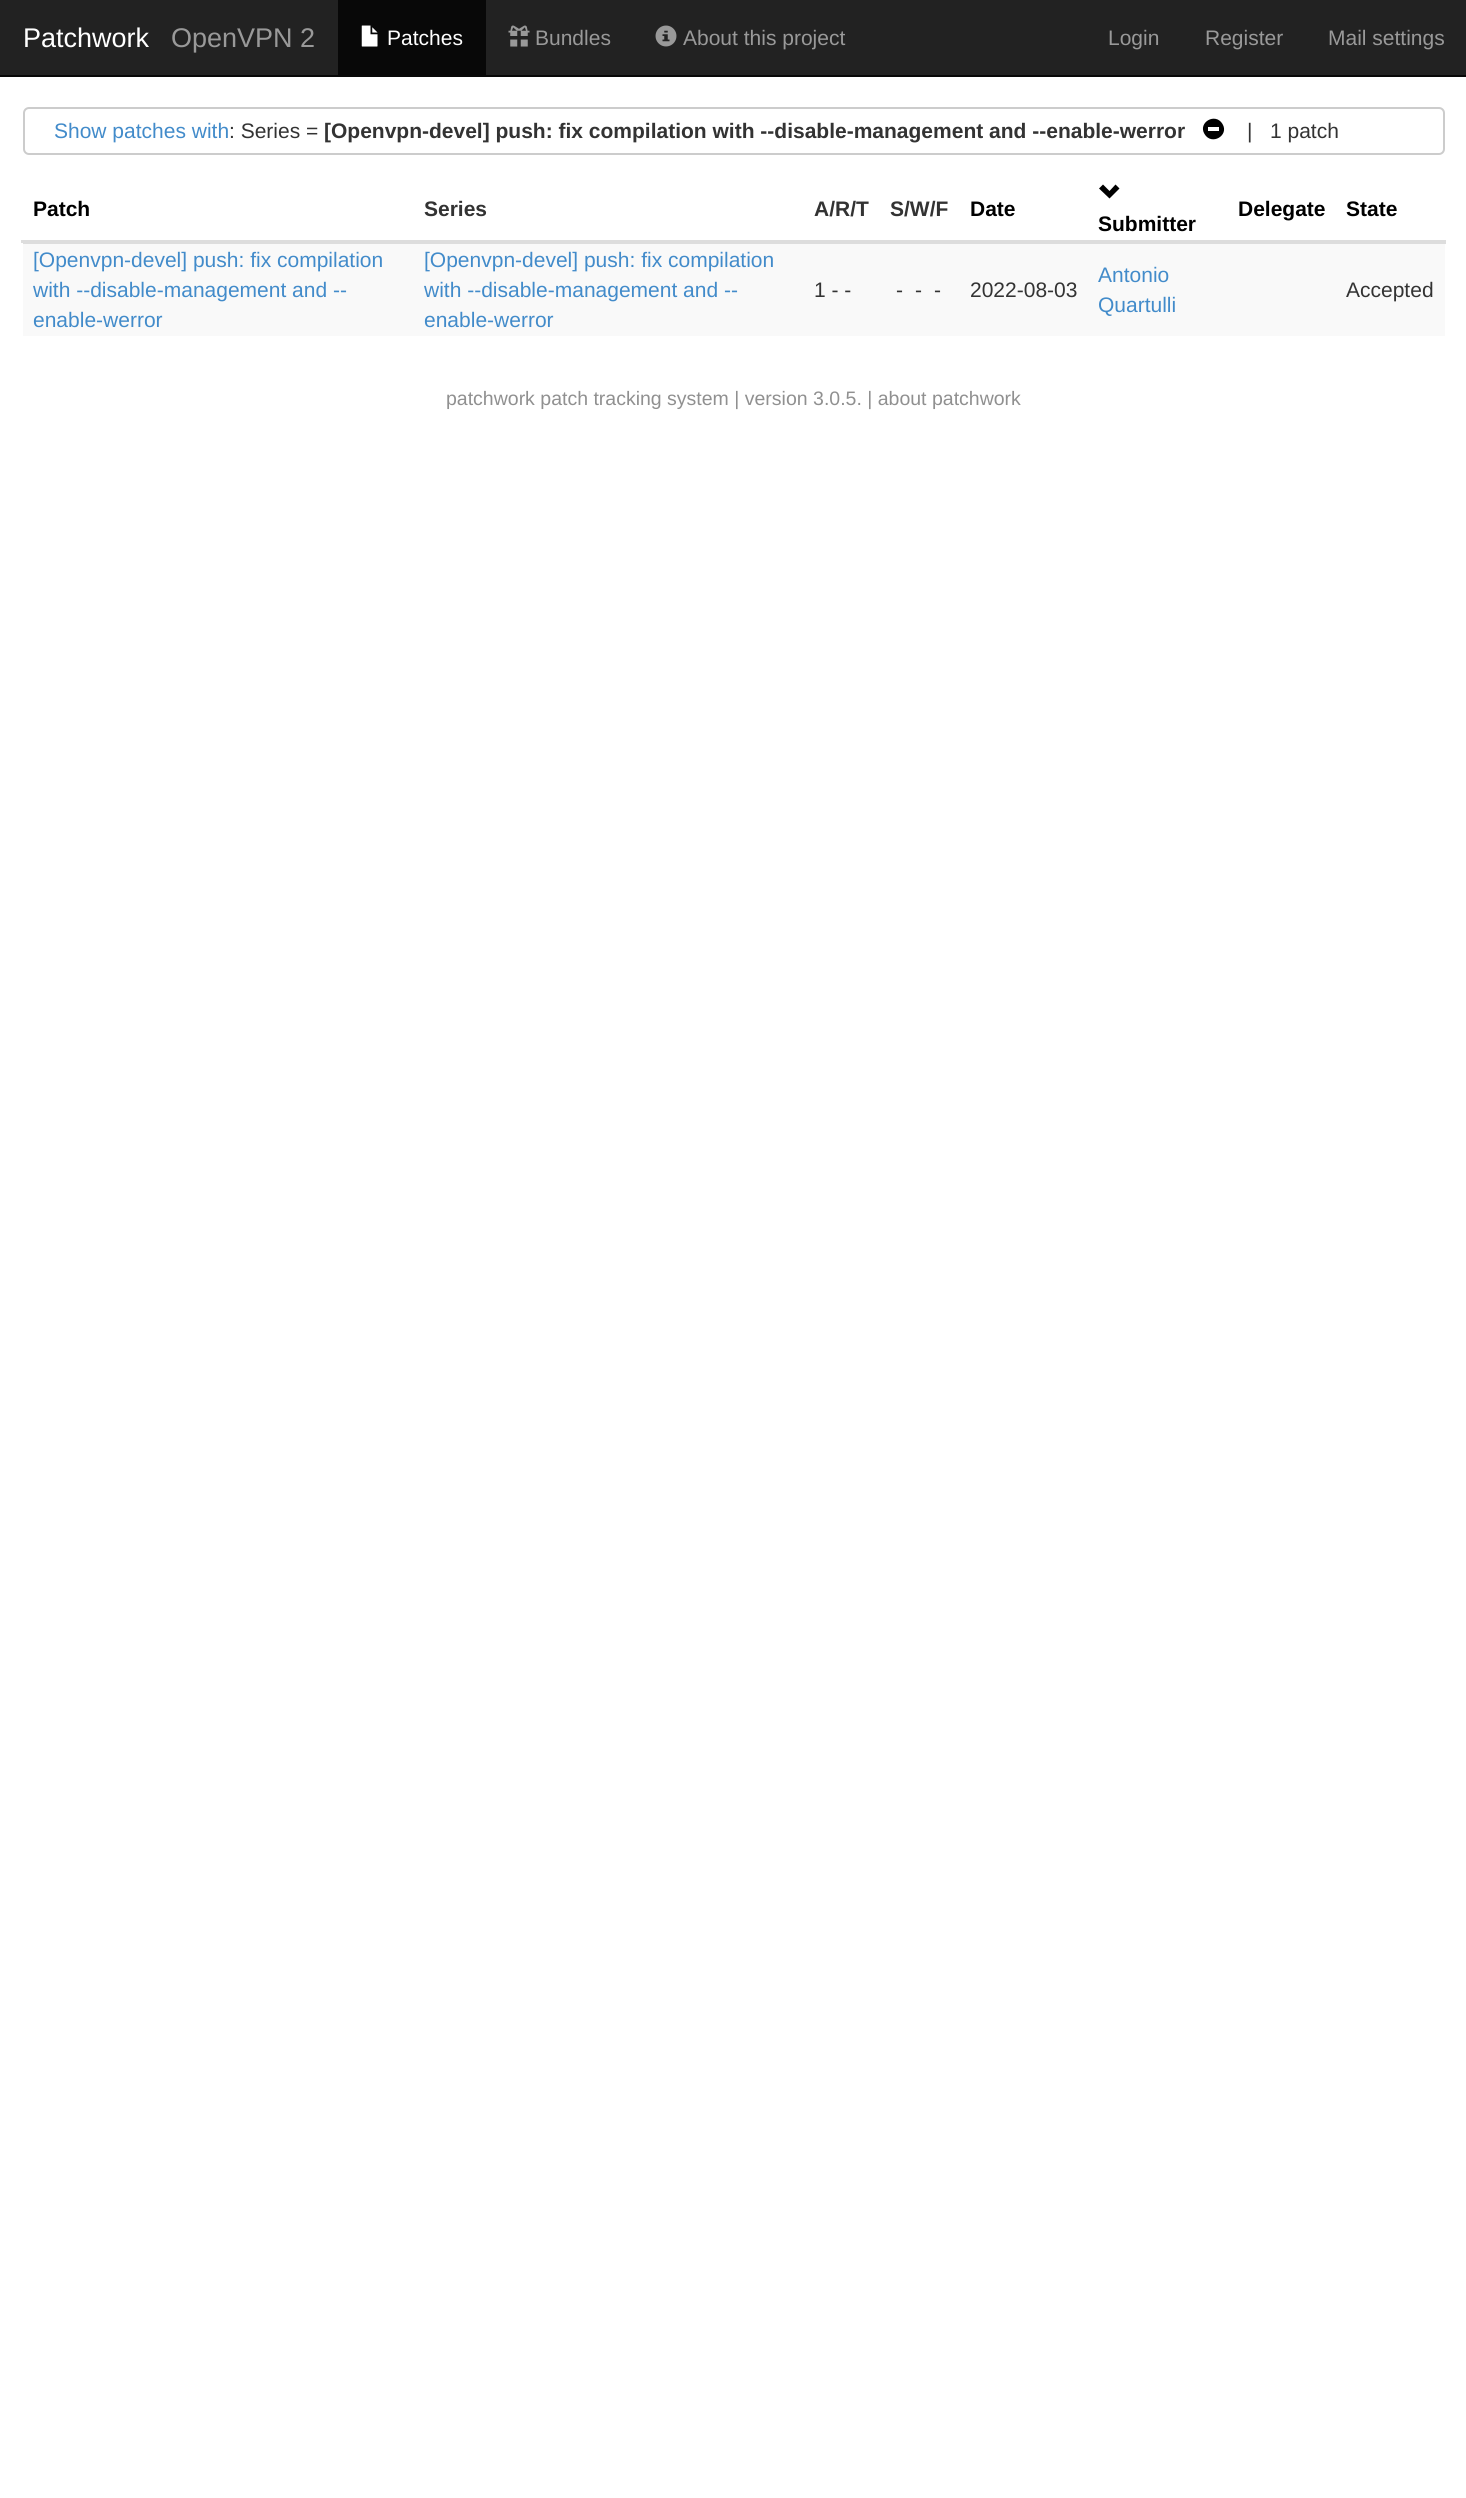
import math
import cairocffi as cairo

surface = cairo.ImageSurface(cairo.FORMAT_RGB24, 1466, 2498)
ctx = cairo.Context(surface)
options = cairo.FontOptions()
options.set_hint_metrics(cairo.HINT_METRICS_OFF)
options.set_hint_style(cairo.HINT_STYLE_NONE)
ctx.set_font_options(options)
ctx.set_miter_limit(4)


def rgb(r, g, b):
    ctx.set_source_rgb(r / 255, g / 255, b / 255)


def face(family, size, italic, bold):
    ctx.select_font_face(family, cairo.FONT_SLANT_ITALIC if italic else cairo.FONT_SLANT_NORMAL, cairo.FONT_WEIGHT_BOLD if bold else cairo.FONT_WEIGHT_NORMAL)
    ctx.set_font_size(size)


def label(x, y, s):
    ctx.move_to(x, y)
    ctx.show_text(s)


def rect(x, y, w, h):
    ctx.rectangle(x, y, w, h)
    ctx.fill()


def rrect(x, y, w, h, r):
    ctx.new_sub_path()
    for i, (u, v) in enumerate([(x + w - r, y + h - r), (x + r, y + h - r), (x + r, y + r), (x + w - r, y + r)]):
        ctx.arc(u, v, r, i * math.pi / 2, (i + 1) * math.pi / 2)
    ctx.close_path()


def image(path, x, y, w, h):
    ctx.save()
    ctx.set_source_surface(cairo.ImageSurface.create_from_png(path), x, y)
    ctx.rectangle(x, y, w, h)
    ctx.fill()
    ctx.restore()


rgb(255, 255, 255)
ctx.paint()
rgb(34, 34, 34)
rect(0, 0, 1466, 75)
rgb(8, 8, 8)
rect(0, 75, 1466, 2)
face('Liberation Sans', 27, 0, 0)
rgb(255, 255, 255)
label(23, 47, 'Patchwork')
rgb(153, 153, 153)
label(171, 47, 'OpenVPN 2')
rgb(8, 8, 8)
rect(338, 0, 148, 75)
image('image0.png', 361, 25, 17, 22)
face('Liberation Sans', 21, 0, 0)
rgb(255, 255, 255)
label(387, 45, 'Patches')
image('image1.png', 508, 25, 22, 22)
rgb(153, 153, 153)
label(535, 45, 'Bundles')
image('image2.png', 655, 25, 22, 22)
label(683, 45, 'About this project')
label(1108, 45, 'Login')
label(1205, 45, 'Register')
label(1328, 45, 'Mail settings')
rrect(24, 108, 1420, 46, 5)
rgb(204, 204, 204)
ctx.stroke()
rgb(66, 139, 202)
label(54, 138, 'Show patches with')
rgb(51, 51, 51)
label(229, 138, ': Series =')
face('Liberation Sans', 21, 0, 1)
label(324, 138, '[Openvpn-devel] push: fix compilation with --disable-management and --enable-werror')
rgb(0, 0, 0)
ctx.new_path()
ctx.move_to(1204.5, 134)
ctx.curve_to(1197.5, 122.5, 1215.5, 112, 1222.5, 124)
ctx.curve_to(1229.5, 135.5, 1211.5, 146, 1204.5, 134)
ctx.close_path()
ctx.move_to(1208, 131)
ctx.line_to(1219, 131)
ctx.line_to(1219, 127)
ctx.line_to(1208, 127)
ctx.close_path()
ctx.fill()
face('Liberation Sans', 21, 0, 0)
rgb(51, 51, 51)
label(1247, 138, '|   1 patch')
face('Liberation Sans', 21, 0, 1)
rgb(0, 0, 0)
label(33, 216, 'Patch')
rgb(51, 51, 51)
label(424, 216, 'Series')
label(814, 216, 'A/R/T')
label(890, 216, 'S/W/F')
rgb(0, 0, 0)
label(970, 216, 'Date')
label(1238, 216, 'Delegate')
rgb(221, 221, 221)
rect(21, 240, 1425, 3)
rgb(0, 0, 0)
label(1346, 216, 'State')
ctx.new_path()
ctx.move_to(1099, 188.5)
ctx.line_to(1109.5, 198.5)
ctx.line_to(1119.5, 188.5)
ctx.line_to(1115.5, 184.5)
ctx.line_to(1109.5, 191)
ctx.line_to(1103, 184.5)
ctx.close_path()
ctx.fill()
label(1098, 231, 'Submitter')
rgb(249, 249, 249)
rect(23, 244, 1422, 92)
face('Liberation Sans', 21, 0, 0)
rgb(66, 139, 202)
label(33, 267, '[Openvpn-devel] push: fix compilation')
label(33, 297, 'with --disable-management and --')
label(33, 327, 'enable-werror')
label(424, 267, '[Openvpn-devel] push: fix compilation')
label(424, 297, 'with --disable-management and --')
label(424, 327, 'enable-werror')
rgb(51, 51, 51)
label(814, 297, '1 - -')
label(896, 297, '-')
label(915, 297, '-')
label(934, 297, '-')
label(970, 297, '2022-08-03')
rgb(66, 139, 202)
label(1098, 282, 'Antonio')
label(1098, 312, 'Quartulli')
rgb(221, 221, 221)
rect(23, 243, 1423, 1)
rgb(51, 51, 51)
label(1346, 297, 'Accepted')
face('Liberation Sans', 19.5, 0, 0)
rgb(144, 144, 144)
label(446, 405, 'patchwork patch tracking system | version 3.0.5. | about patchwork')
surface.write_to_png('render.png')
